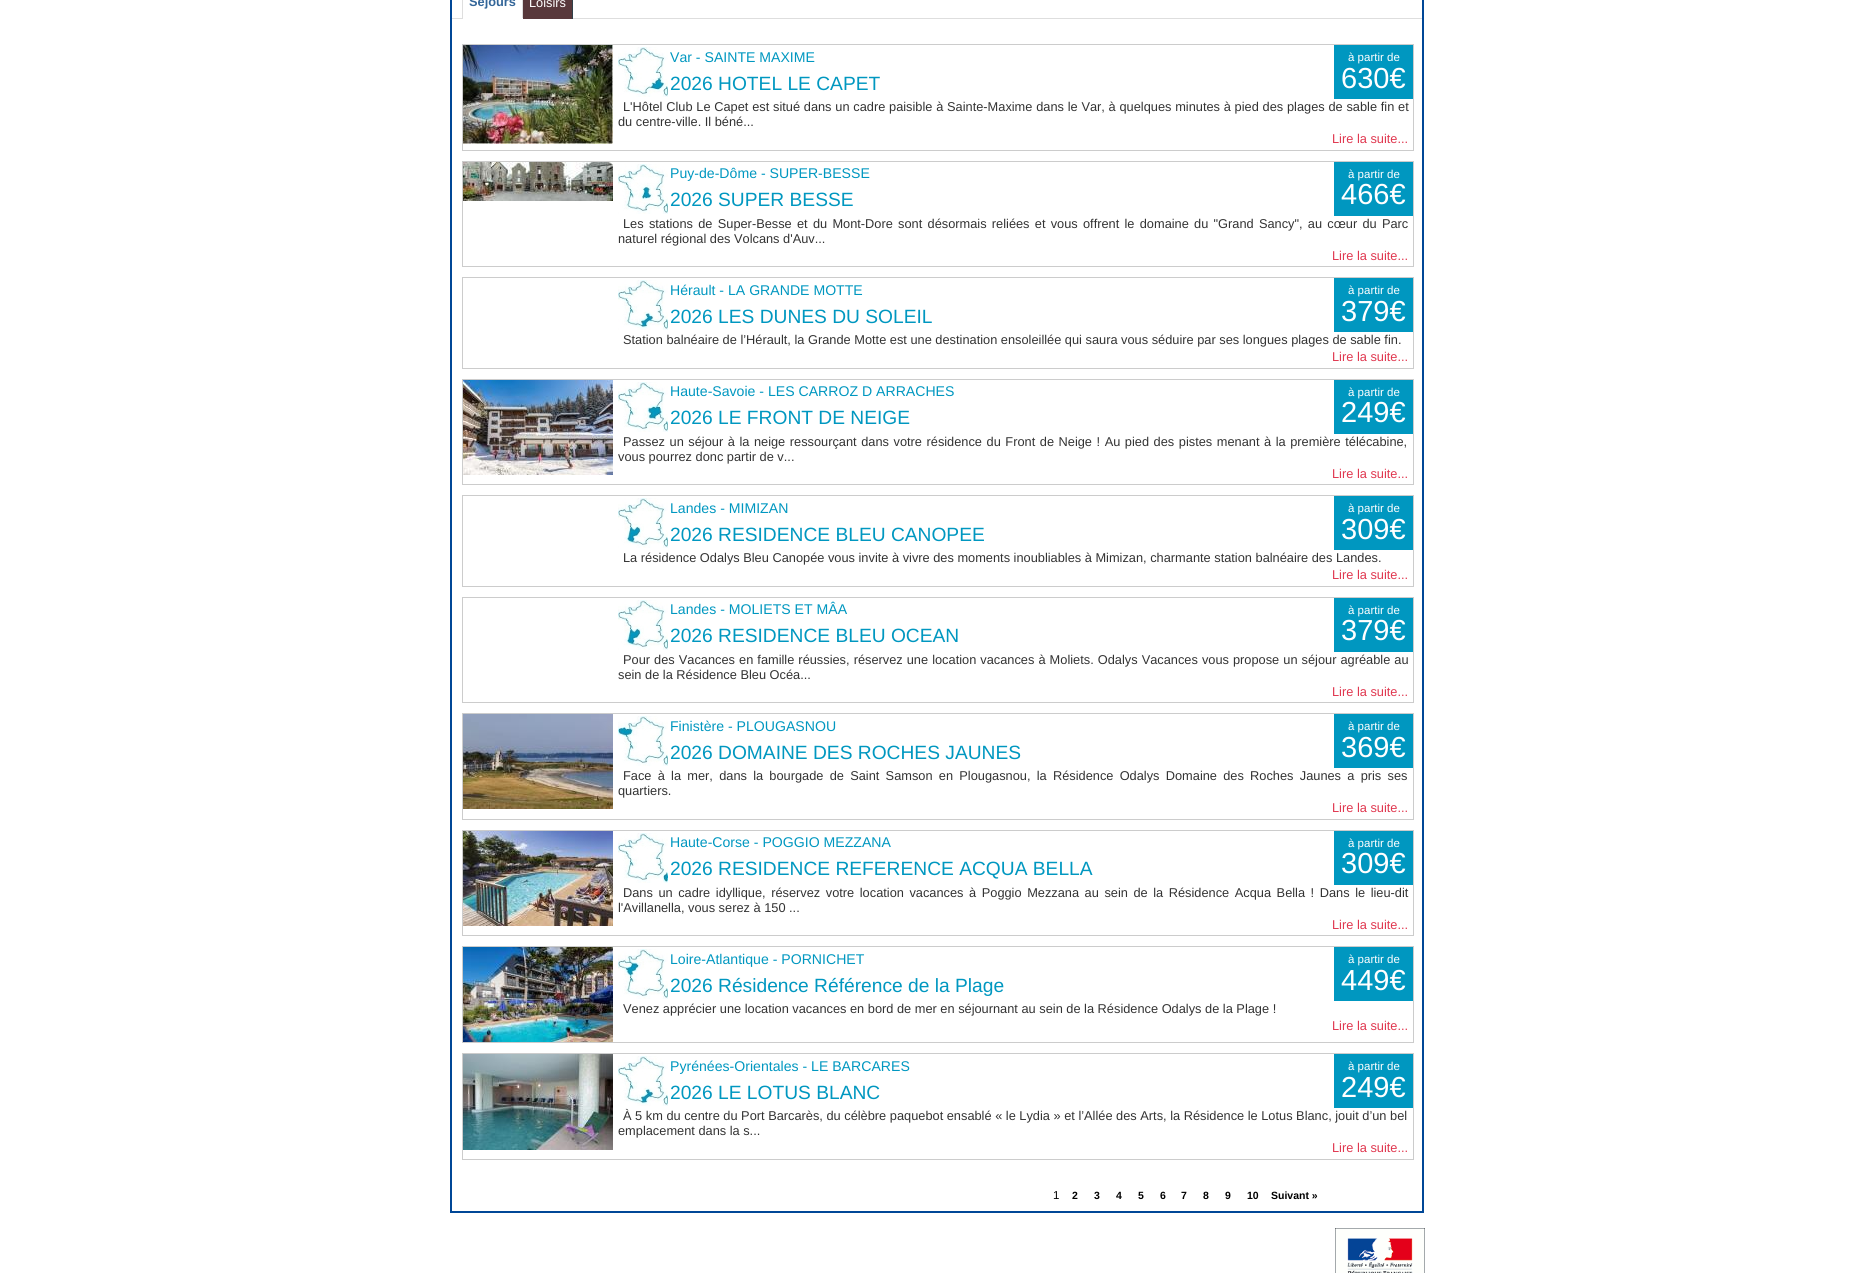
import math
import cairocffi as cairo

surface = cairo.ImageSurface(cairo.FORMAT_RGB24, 1870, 1273)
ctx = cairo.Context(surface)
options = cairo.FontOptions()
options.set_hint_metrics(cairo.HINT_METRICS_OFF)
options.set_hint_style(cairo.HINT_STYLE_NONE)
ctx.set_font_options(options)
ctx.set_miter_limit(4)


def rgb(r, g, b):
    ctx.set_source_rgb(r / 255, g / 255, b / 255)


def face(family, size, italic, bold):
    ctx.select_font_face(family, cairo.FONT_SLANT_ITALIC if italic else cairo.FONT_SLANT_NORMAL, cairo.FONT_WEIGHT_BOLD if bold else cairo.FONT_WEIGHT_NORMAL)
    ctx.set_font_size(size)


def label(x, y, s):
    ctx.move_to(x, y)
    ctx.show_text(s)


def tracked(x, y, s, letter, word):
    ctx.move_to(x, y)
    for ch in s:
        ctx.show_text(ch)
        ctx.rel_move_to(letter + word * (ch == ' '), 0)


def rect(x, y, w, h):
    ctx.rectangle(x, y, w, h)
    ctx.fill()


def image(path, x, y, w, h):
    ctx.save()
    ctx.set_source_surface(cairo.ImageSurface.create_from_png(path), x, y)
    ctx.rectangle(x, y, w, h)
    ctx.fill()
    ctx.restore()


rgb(255, 255, 255)
ctx.paint()
rgb(0, 71, 151)
rect(1422, 0, 2, 1213)
rect(450, 1211, 974, 2)
rect(450, 0, 2, 1213)
rgb(222, 222, 222)
rect(452, 18, 970, 1)
rect(522, 0, 1, 19)
rgb(255, 255, 255)
rect(462, 18, 61, 1)
rgb(222, 222, 222)
rect(462, 0, 1, 19)
face('Liberation Sans', 12.8, 0, 1)
rgb(51, 102, 153)
label(469, 6, 'Séjours')
rgb(88, 56, 59)
rect(523, 0, 49, 19)
rgb(48, 64, 73)
rect(572, 0, 1, 19)
face('Liberation Sans', 12.8, 0, 0)
rgb(255, 255, 255)
label(529, 7, 'Loisirs')
ctx.rectangle(462.5, 44.5, 951, 106)
rgb(204, 204, 204)
ctx.set_line_width(1)
ctx.stroke()
image('image0.png', 463, 45, 150, 99)
image('image1.png', 618, 47, 50, 50)
face('Liberation Sans', 14.1, 0, 0)
rgb(0, 151, 192)
label(670, 62, 'Var - SAINTE MAXIME')
rect(1334, 45, 79, 54)
face('Liberation Sans', 11.5, 0, 0)
rgb(255, 255, 255)
label(1348, 61, 'à partir de')
face('Liberation Sans', 29, 0, 0)
label(1341, 88, '630€')
face('Liberation Sans', 19.2, 0, 0)
rgb(0, 151, 192)
label(670, 90, '2026 HOTEL LE CAPET')
face('Liberation Sans', 12.8, 0, 0)
rgb(51, 51, 51)
tracked(623, 111, 'L\'Hôtel Club Le Capet est situé dans un cadre paisible à Sainte-Maxime dans le Var, à quelques minutes à pied des plages de sable fin et', 0, 0.2)
label(618, 126, 'du centre-ville. Il béné...')
rgb(224, 55, 79)
label(1332, 143, 'Lire la suite...')
ctx.rectangle(462.5, 161.5, 951, 105)
rgb(204, 204, 204)
ctx.stroke()
image('image2.png', 463, 162, 150, 39)
image('image3.png', 618, 164, 50, 50)
face('Liberation Sans', 14.1, 0, 0)
rgb(0, 151, 192)
label(670, 178, 'Puy-de-Dôme - SUPER-BESSE')
rect(1334, 162, 79, 54)
face('Liberation Sans', 11.5, 0, 0)
rgb(255, 255, 255)
label(1348, 178, 'à partir de')
face('Liberation Sans', 29, 0, 0)
label(1341, 204, '466€')
face('Liberation Sans', 19.2, 0, 0)
rgb(0, 151, 192)
label(670, 206, '2026 SUPER BESSE')
face('Liberation Sans', 12.8, 0, 0)
rgb(51, 51, 51)
tracked(623, 228, 'Les stations de Super-Besse et du Mont-Dore sont désormais reliées et vous offrent le domaine du "Grand Sancy", au cœur du Parc', 0, 1.7)
label(618, 243, 'naturel régional des Volcans d\'Auv...')
rgb(224, 55, 79)
label(1332, 260, 'Lire la suite...')
ctx.rectangle(462.5, 277.5, 951, 91)
rgb(204, 204, 204)
ctx.stroke()
image('image4.png', 618, 280, 50, 50)
face('Liberation Sans', 14.1, 0, 0)
rgb(0, 151, 192)
label(670, 295, 'Hérault - LA GRANDE MOTTE')
rect(1334, 278, 79, 54)
face('Liberation Sans', 11.5, 0, 0)
rgb(255, 255, 255)
label(1348, 294, 'à partir de')
face('Liberation Sans', 29, 0, 0)
label(1341, 321, '379€')
face('Liberation Sans', 19.2, 0, 0)
rgb(0, 151, 192)
label(670, 323, '2026 LES DUNES DU SOLEIL')
face('Liberation Sans', 12.8, 0, 0)
rgb(51, 51, 51)
label(623, 344, 'Station balnéaire de l’Hérault, la Grande Motte est une destination ensoleillée qui saura vous séduire par ses longues plages de sable fin.')
rgb(224, 55, 79)
label(1332, 361, 'Lire la suite...')
ctx.rectangle(462.5, 379.5, 951, 105)
rgb(204, 204, 204)
ctx.stroke()
image('image5.png', 463, 380, 150, 95)
image('image6.png', 618, 382, 50, 50)
face('Liberation Sans', 14.1, 0, 0)
rgb(0, 151, 192)
label(670, 396, 'Haute-Savoie - LES CARROZ D ARRACHES')
rect(1334, 380, 79, 54)
face('Liberation Sans', 11.5, 0, 0)
rgb(255, 255, 255)
label(1348, 396, 'à partir de')
face('Liberation Sans', 29, 0, 0)
label(1341, 422, '249€')
face('Liberation Sans', 19.2, 0, 0)
rgb(0, 151, 192)
label(670, 424, '2026 LE FRONT DE NEIGE')
face('Liberation Sans', 12.8, 0, 0)
rgb(51, 51, 51)
tracked(623, 446, 'Passez un séjour à la neige ressourçant dans votre résidence du Front de Neige ! Au pied des pistes menant à la première télécabine,', 0, 1)
label(618, 461, 'vous pourrez donc partir de v...')
rgb(224, 55, 79)
label(1332, 478, 'Lire la suite...')
ctx.rectangle(462.5, 495.5, 951, 91)
rgb(204, 204, 204)
ctx.stroke()
image('image7.png', 618, 498, 50, 50)
face('Liberation Sans', 14.1, 0, 0)
rgb(0, 151, 192)
label(670, 513, 'Landes - MIMIZAN')
rect(1334, 496, 79, 54)
face('Liberation Sans', 11.5, 0, 0)
rgb(255, 255, 255)
label(1348, 512, 'à partir de')
face('Liberation Sans', 29, 0, 0)
label(1341, 539, '309€')
face('Liberation Sans', 19.2, 0, 0)
rgb(0, 151, 192)
label(670, 541, '2026 RESIDENCE BLEU CANOPEE')
face('Liberation Sans', 12.8, 0, 0)
rgb(51, 51, 51)
label(623, 562, 'La résidence Odalys Bleu Canopée vous invite à vivre des moments inoubliables à Mimizan, charmante station balnéaire des Landes.')
rgb(224, 55, 79)
label(1332, 579, 'Lire la suite...')
ctx.rectangle(462.5, 597.5, 951, 105)
rgb(204, 204, 204)
ctx.stroke()
image('image7.png', 618, 600, 50, 50)
face('Liberation Sans', 14.1, 0, 0)
rgb(0, 151, 192)
label(670, 614, 'Landes - MOLIETS ET MÂA')
rect(1334, 598, 79, 54)
face('Liberation Sans', 11.5, 0, 0)
rgb(255, 255, 255)
label(1348, 614, 'à partir de')
face('Liberation Sans', 29, 0, 0)
label(1341, 640, '379€')
face('Liberation Sans', 19.2, 0, 0)
rgb(0, 151, 192)
label(670, 642, '2026 RESIDENCE BLEU OCEAN')
face('Liberation Sans', 12.8, 0, 0)
rgb(51, 51, 51)
tracked(623, 664, 'Pour des Vacances en famille réussies, réservez une location vacances à Moliets. Odalys Vacances vous propose un séjour agréable au', 0, 0.5)
label(618, 679, 'sein de la Résidence Bleu Océa...')
rgb(224, 55, 79)
label(1332, 696, 'Lire la suite...')
ctx.rectangle(462.5, 713.5, 951, 106)
rgb(204, 204, 204)
ctx.stroke()
image('image8.png', 463, 714, 150, 95)
image('image9.png', 618, 716, 50, 50)
face('Liberation Sans', 14.1, 0, 0)
rgb(0, 151, 192)
label(670, 731, 'Finistère - PLOUGASNOU')
rect(1334, 714, 79, 54)
face('Liberation Sans', 11.5, 0, 0)
rgb(255, 255, 255)
label(1348, 730, 'à partir de')
face('Liberation Sans', 29, 0, 0)
label(1341, 757, '369€')
face('Liberation Sans', 19.2, 0, 0)
rgb(0, 151, 192)
label(670, 759, '2026 DOMAINE DES ROCHES JAUNES')
face('Liberation Sans', 12.8, 0, 0)
rgb(51, 51, 51)
tracked(623, 780, 'Face à la mer, dans la bourgade de Saint Samson en Plougasnou, la Résidence Odalys Domaine des Roches Jaunes a pris ses', 0, 2.7)
label(618, 795, 'quartiers.')
rgb(224, 55, 79)
label(1332, 812, 'Lire la suite...')
ctx.rectangle(462.5, 830.5, 951, 105)
rgb(204, 204, 204)
ctx.stroke()
image('image10.png', 463, 831, 150, 95)
image('image11.png', 618, 833, 50, 50)
face('Liberation Sans', 14.1, 0, 0)
rgb(0, 151, 192)
label(670, 847, 'Haute-Corse - POGGIO MEZZANA')
rect(1334, 831, 79, 54)
face('Liberation Sans', 11.5, 0, 0)
rgb(255, 255, 255)
label(1348, 847, 'à partir de')
face('Liberation Sans', 29, 0, 0)
label(1341, 873, '309€')
face('Liberation Sans', 19.2, 0, 0)
rgb(0, 151, 192)
label(670, 875, '2026 RESIDENCE REFERENCE ACQUA BELLA')
face('Liberation Sans', 12.8, 0, 0)
rgb(51, 51, 51)
tracked(623, 897, 'Dans un cadre idyllique, réservez votre location vacances à Poggio Mezzana au sein de la Résidence Acqua Bella ! Dans le lieu-dit', 0, 2)
label(618, 912, 'l\'Avillanella, vous serez à 150 ...')
rgb(224, 55, 79)
label(1332, 929, 'Lire la suite...')
ctx.rectangle(462.5, 946.5, 951, 96)
rgb(204, 204, 204)
ctx.stroke()
image('image12.png', 463, 947, 150, 95)
image('image13.png', 618, 949, 50, 50)
face('Liberation Sans', 14.1, 0, 0)
rgb(0, 151, 192)
label(670, 964, 'Loire-Atlantique - PORNICHET')
rect(1334, 947, 79, 54)
face('Liberation Sans', 11.5, 0, 0)
rgb(255, 255, 255)
label(1348, 963, 'à partir de')
face('Liberation Sans', 29, 0, 0)
label(1341, 990, '449€')
face('Liberation Sans', 19.2, 0, 0)
rgb(0, 151, 192)
label(670, 992, '2026 Résidence Référence de la Plage')
face('Liberation Sans', 12.8, 0, 0)
rgb(51, 51, 51)
label(623, 1013, 'Venez apprécier une location vacances en bord de mer en séjournant au sein de la Résidence Odalys de la Plage !')
rgb(224, 55, 79)
label(1332, 1030, 'Lire la suite...')
ctx.rectangle(462.5, 1053.5, 951, 106)
rgb(204, 204, 204)
ctx.stroke()
image('image14.png', 463, 1054, 150, 96)
image('image4.png', 618, 1056, 50, 50)
face('Liberation Sans', 14.1, 0, 0)
rgb(0, 151, 192)
label(670, 1071, 'Pyrénées-Orientales - LE BARCARES')
rect(1334, 1054, 79, 54)
face('Liberation Sans', 11.5, 0, 0)
rgb(255, 255, 255)
label(1348, 1070, 'à partir de')
face('Liberation Sans', 29, 0, 0)
label(1341, 1097, '249€')
face('Liberation Sans', 19.2, 0, 0)
rgb(0, 151, 192)
label(670, 1099, '2026 LE LOTUS BLANC')
face('Liberation Sans', 12.8, 0, 0)
rgb(51, 51, 51)
label(623, 1120, 'À 5 km du centre du Port Barcarès, du célèbre paquebot ensablé « le Lydia » et l’Allée des Arts, la Résidence le Lotus Blanc, jouit d’un bel')
label(618, 1135, 'emplacement dans la s...')
rgb(224, 55, 79)
label(1332, 1152, 'Lire la suite...')
face('Liberation Sans', 11.5, 0, 0)
rgb(0, 0, 0)
label(1053, 1199, '1')
face('Liberation Sans', 10.5, 0, 1)
label(1072, 1199, '2')
label(1094, 1199, '3')
label(1116, 1199, '4')
label(1138, 1199, '5')
label(1160, 1199, '6')
label(1181, 1199, '7')
label(1203, 1199, '8')
label(1225, 1199, '9')
label(1247, 1199, '10')
label(1271, 1199, 'Suivant »')
image('image15.png', 1335, 1228, 90, 45)
surface.write_to_png('render.png')
